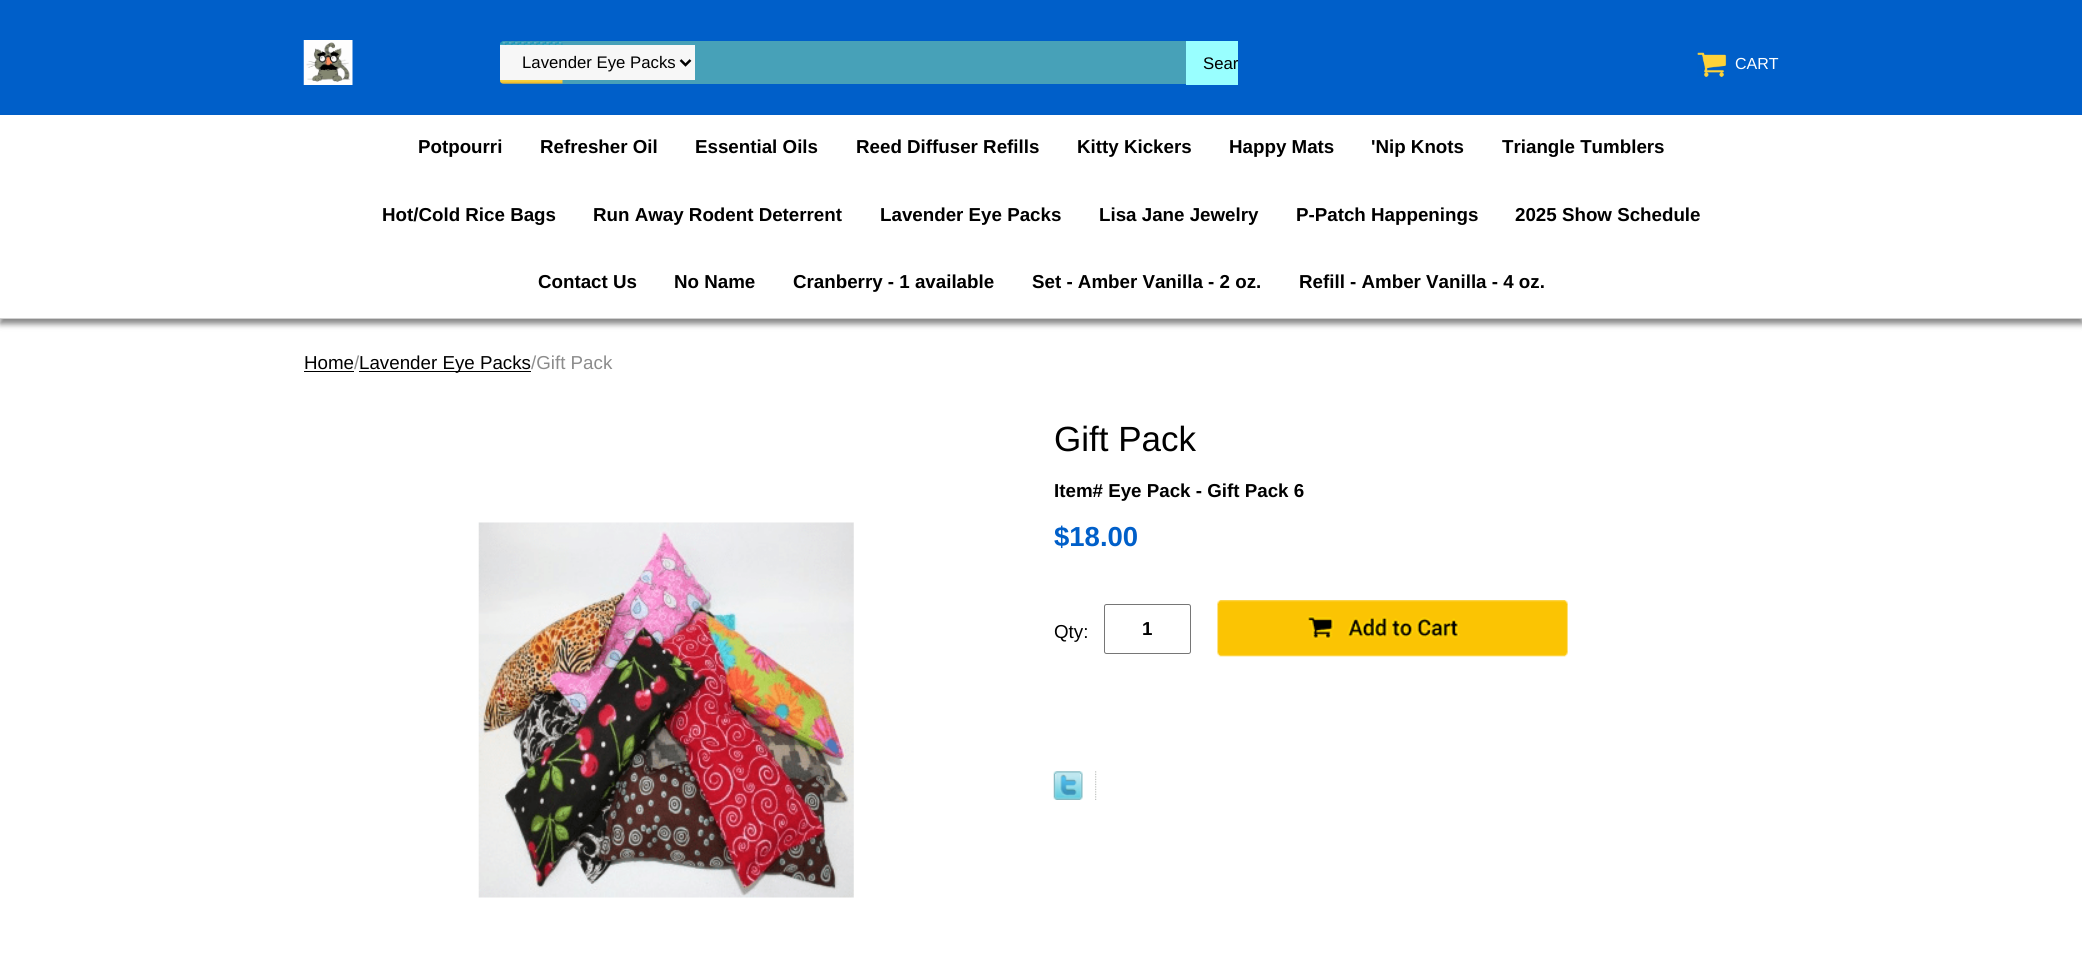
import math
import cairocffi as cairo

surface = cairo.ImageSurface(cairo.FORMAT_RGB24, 2082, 966)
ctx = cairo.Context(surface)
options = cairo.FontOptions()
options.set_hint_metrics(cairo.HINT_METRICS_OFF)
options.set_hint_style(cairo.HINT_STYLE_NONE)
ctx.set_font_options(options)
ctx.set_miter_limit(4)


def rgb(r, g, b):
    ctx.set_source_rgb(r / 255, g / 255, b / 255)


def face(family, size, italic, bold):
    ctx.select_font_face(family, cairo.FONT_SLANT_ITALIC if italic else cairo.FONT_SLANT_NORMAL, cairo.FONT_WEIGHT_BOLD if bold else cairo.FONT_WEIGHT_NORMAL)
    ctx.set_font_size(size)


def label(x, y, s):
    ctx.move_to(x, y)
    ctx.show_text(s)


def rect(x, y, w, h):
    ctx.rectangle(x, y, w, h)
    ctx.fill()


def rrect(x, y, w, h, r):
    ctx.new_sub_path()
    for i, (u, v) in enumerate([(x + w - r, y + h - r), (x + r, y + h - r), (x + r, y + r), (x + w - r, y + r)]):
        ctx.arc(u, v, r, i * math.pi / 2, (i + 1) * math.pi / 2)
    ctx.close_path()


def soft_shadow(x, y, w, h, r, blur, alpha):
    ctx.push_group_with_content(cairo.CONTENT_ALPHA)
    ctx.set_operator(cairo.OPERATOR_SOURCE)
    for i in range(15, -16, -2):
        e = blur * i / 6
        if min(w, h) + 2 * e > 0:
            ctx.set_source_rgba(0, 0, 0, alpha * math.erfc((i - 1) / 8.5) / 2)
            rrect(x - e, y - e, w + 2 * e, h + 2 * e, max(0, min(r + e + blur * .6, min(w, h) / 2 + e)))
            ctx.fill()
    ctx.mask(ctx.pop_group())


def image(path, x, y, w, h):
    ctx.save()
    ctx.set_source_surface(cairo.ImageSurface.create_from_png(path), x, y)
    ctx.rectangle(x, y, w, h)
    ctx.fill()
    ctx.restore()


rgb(255, 255, 255)
ctx.paint()
rgb(0, 95, 201)
rect(0, 0, 2082, 115)
image('image0.png', 303, 40, 50, 45)
rgb(71, 161, 184)
rrect(500, 41, 738, 43, 4)
ctx.fill()
image('image1.png', 500, 41, 63, 43)
rgb(247, 247, 247)
rect(500, 45, 195, 35)
ctx.new_path()
ctx.move_to(680.5, 60)
ctx.line_to(685.5, 65)
ctx.line_to(690.5, 60)
rgb(0, 0, 0)
ctx.set_line_width(2.5)
ctx.stroke()
face('Liberation Sans', 16.75, 0, 0)
label(522, 68, 'Lavender Eye Packs')
rgb(153, 255, 255)
rect(1186, 41, 52, 44)
rgb(0, 0, 0)
label(1203, 69, 'Sear')
image('image2.png', 1697, 52, 30, 25)
face('Liberation Sans', 16, 0, 0)
rgb(255, 255, 255)
label(1735, 69, 'CART')
rgb(0, 0, 0)
soft_shadow(0, 120, 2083, 204, 0, 3, 0.48)
rgb(255, 255, 255)
rect(0, 115, 2082, 203)
rgb(208, 208, 208)
rect(0, 318, 2082, 1)
face('Liberation Sans', 18.75, 0, 1)
rgb(0, 0, 0)
label(418, 153, 'Potpourri')
label(540, 153, 'Refresher Oil')
label(695, 153, 'Essential Oils')
label(856, 153, 'Reed Diffuser Refills')
label(1077, 153, 'Kitty Kickers')
label(1229, 153, 'Happy Mats')
label(1371, 153, '\'Nip Knots')
label(1502, 153, 'Triangle Tumblers')
label(382, 221, 'Hot/Cold Rice Bags')
label(593, 221, 'Run Away Rodent Deterrent')
label(880, 221, 'Lavender Eye Packs')
label(1099, 221, 'Lisa Jane Jewelry')
label(1296, 221, 'P-Patch Happenings')
label(1515, 221, '2025 Show Schedule')
label(538, 288, 'Contact Us')
label(674, 288, 'No Name')
label(793, 288, 'Cranberry - 1 available')
label(1032, 288, 'Set - Amber Vanilla - 2 oz.')
label(1299, 288, 'Refill - Amber Vanilla - 4 oz.')
face('Liberation Sans', 18.75, 0, 0)
label(304, 369, 'Home')
rect(304, 371, 50, 1)
rgb(140, 140, 140)
label(354, 369, '/')
rgb(0, 0, 0)
rect(359, 371, 172, 1)
label(359, 369, 'Lavender Eye Packs')
rgb(140, 140, 140)
label(531, 369, '/Gift Pack')
image('image3.png', 478, 522, 376, 376)
face('Liberation Sans', 35, 0, 0)
rgb(0, 0, 0)
label(1054, 451, 'Gift Pack')
face('Liberation Sans', 18.75, 0, 1)
label(1054, 497, 'Item# Eye Pack - Gift Pack 6')
face('Liberation Sans', 27.5, 0, 1)
rgb(0, 95, 201)
label(1054, 546, '$18.00')
face('Liberation Sans', 18.75, 0, 0)
rgb(0, 0, 0)
label(1054, 638, 'Qty:')
rrect(1104.5, 604.5, 86, 49, 2)
rgb(118, 118, 118)
ctx.set_line_width(1)
ctx.stroke()
face('Liberation Sans', 18.75, 0, 1)
rgb(0, 0, 0)
label(1142, 635, '1')
image('image4.png', 1217, 600, 351, 57)
image('image5.png', 1053, 771, 30, 29)
image('image6.png', 1095, 771, 2, 29)
surface.write_to_png('render.png')
